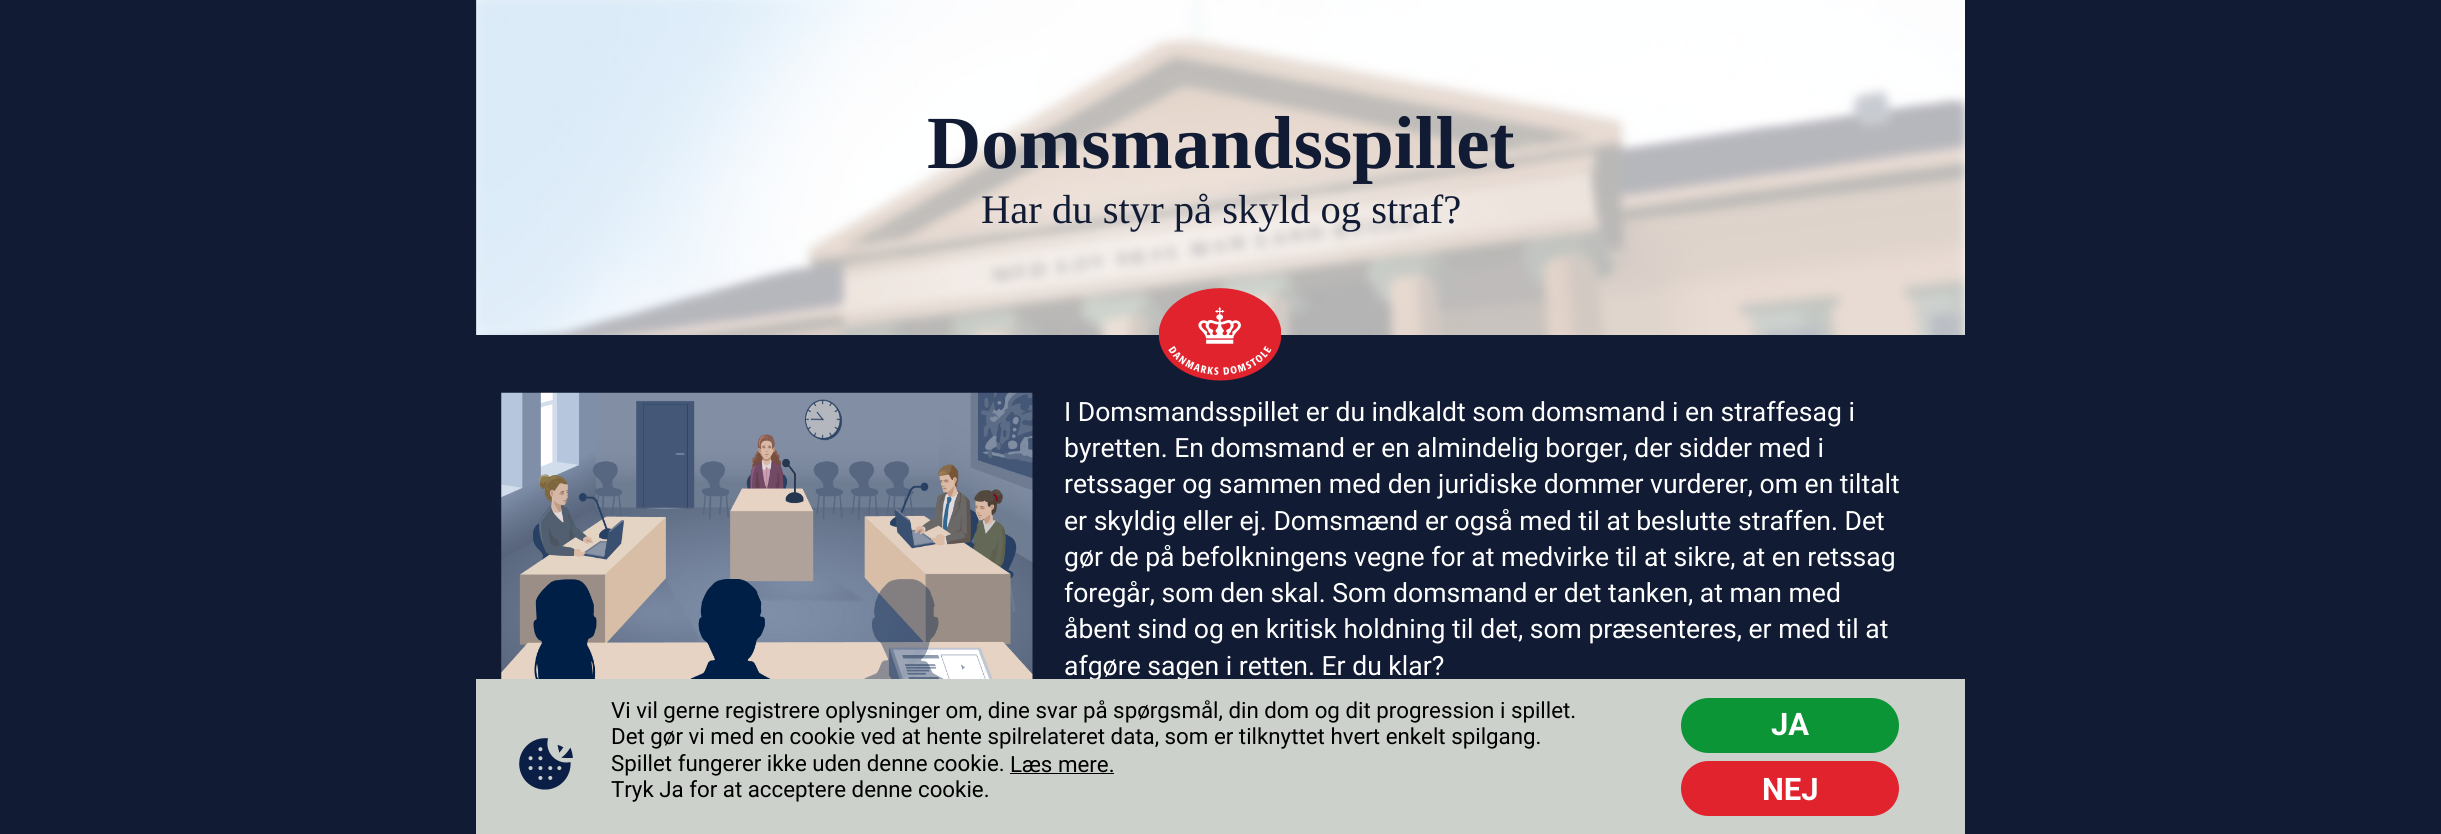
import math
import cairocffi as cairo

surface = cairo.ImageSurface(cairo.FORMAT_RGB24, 2441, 834)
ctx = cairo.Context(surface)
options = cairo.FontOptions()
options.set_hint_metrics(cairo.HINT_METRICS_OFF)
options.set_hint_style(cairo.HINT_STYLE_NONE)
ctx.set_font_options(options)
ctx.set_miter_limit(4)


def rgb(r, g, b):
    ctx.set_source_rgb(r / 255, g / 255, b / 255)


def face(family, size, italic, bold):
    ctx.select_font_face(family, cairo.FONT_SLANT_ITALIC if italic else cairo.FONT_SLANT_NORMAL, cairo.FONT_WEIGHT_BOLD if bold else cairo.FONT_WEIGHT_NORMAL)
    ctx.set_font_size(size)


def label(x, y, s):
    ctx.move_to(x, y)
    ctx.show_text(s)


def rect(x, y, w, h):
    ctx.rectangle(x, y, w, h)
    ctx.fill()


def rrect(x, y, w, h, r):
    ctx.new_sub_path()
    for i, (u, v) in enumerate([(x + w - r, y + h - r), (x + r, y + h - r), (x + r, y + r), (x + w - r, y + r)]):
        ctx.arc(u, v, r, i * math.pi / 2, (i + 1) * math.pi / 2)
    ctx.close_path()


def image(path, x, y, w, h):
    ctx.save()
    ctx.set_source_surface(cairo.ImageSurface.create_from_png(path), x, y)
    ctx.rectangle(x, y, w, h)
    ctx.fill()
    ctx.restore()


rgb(17, 27, 52)
ctx.paint()
image('image0.png', 476, 0, 1489, 335)
face('Liberation Serif', 75, 0, 1)
rgb(17, 27, 52)
label(927, 168, 'Domsmandsspillet')
face('Liberation Serif', 40.6, 0, 0)
label(981, 223, 'Har du styr på skyld og straf?')
image('image1.png', 1159, 288, 122, 93)
image('image2.png', 501, 392, 532, 287)
face('Roboto', 26.55, 0, 0)
rgb(255, 255, 255)
label(1064, 421, 'I Domsmandsspillet er du indkaldt som domsmand i en straffesag i')
label(1064, 457, 'byretten. En domsmand er en almindelig borger, der sidder med i')
label(1064, 493, 'retssager og sammen med den juridiske dommer vurderer, om en tiltalt')
label(1064, 530, 'er skyldig eller ej. Domsmænd er også med til at beslutte straffen. Det')
label(1064, 566, 'gør de på befolkningens vegne for at medvirke til at sikre, at en retssag')
label(1064, 602, 'foregår, som den skal. Som domsmand er det tanken, at man med')
label(1064, 638, 'åbent sind og en kritisk holdning til det, som præsenteres, er med til at')
label(1064, 675, 'afgøre sagen i retten. Er du klar?')
rgb(204, 209, 204)
rect(476, 679, 1489, 155)
image('image3.png', 519, 738, 54, 52)
face('Roboto', 22.3, 0, 0)
rgb(0, 0, 0)
label(611, 718, 'Vi vil gerne registrere oplysninger om, dine svar på spørgsmål, din dom og dit progression i spillet.')
label(611, 744, 'Det gør vi med en cookie ved at hente spilrelateret data, som er tilknyttet hvert enkelt spilgang.')
label(611, 771, 'Spillet fungerer ikke uden denne cookie.')
label(611, 797, 'Tryk Ja for at acceptere denne cookie.')
label(1010, 772, 'Læs mere.')
rect(1010, 773, 104, 1)
rgb(11, 149, 54)
rrect(1681, 698, 218, 55, 27.5)
ctx.fill()
face('Roboto', 31, 0, 1)
rgb(255, 255, 255)
label(1771, 735, 'JA')
rgb(225, 35, 45)
rrect(1681, 761, 218, 55, 27.5)
ctx.fill()
rgb(255, 255, 255)
label(1762, 800, 'NEJ')
surface.write_to_png('render.png')
